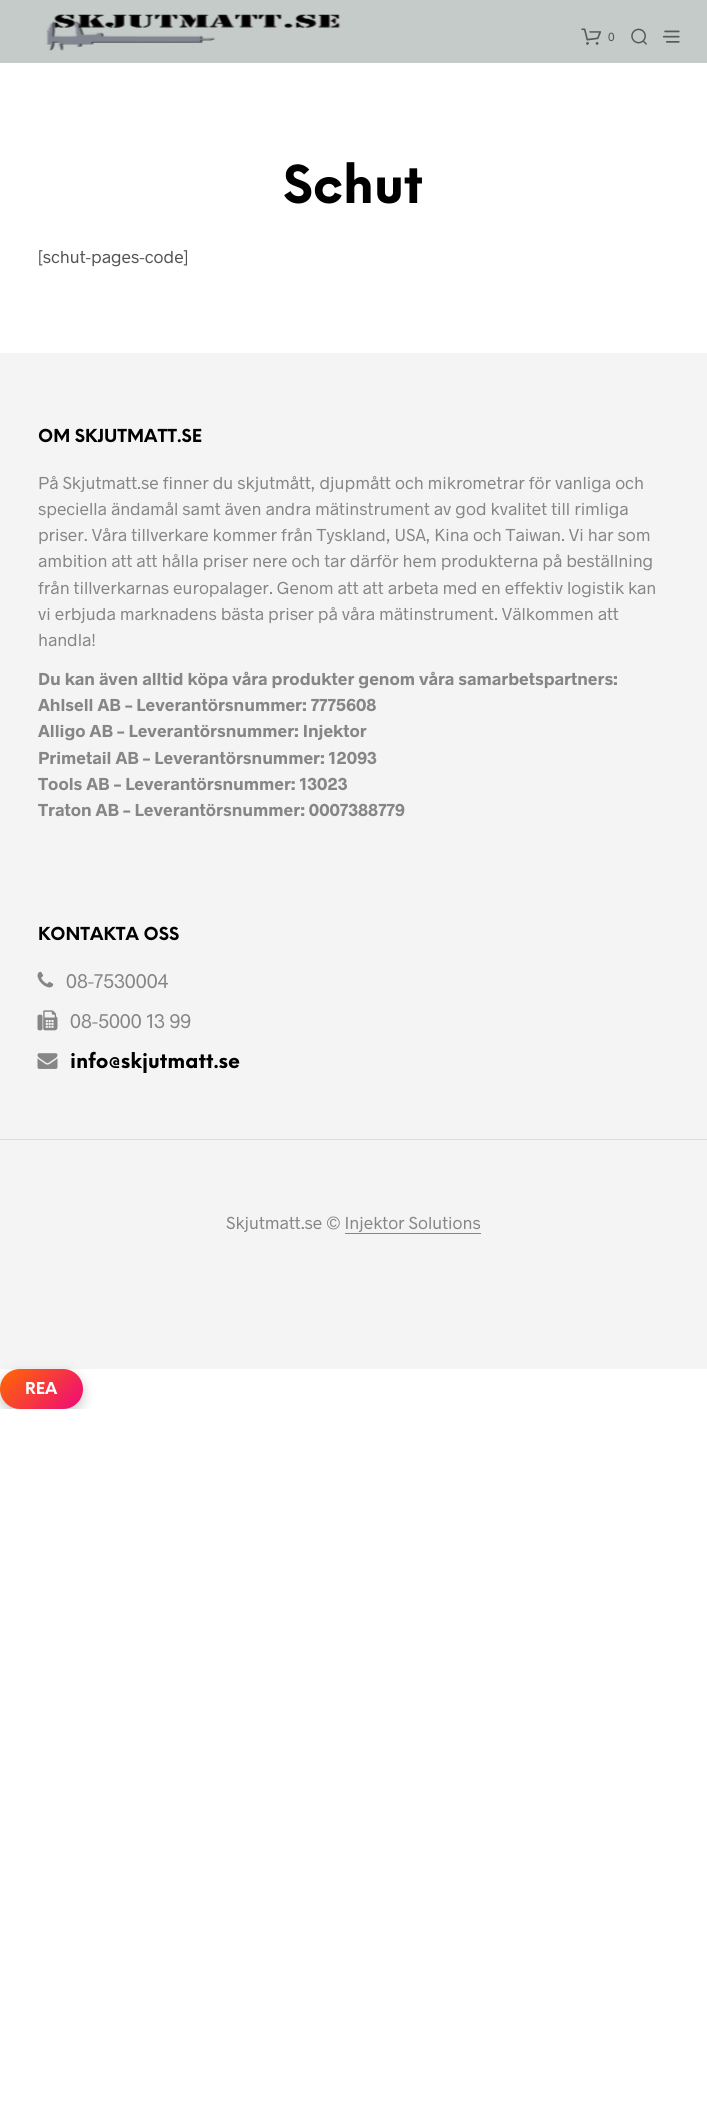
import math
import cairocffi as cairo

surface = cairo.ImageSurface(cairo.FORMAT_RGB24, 707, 2118)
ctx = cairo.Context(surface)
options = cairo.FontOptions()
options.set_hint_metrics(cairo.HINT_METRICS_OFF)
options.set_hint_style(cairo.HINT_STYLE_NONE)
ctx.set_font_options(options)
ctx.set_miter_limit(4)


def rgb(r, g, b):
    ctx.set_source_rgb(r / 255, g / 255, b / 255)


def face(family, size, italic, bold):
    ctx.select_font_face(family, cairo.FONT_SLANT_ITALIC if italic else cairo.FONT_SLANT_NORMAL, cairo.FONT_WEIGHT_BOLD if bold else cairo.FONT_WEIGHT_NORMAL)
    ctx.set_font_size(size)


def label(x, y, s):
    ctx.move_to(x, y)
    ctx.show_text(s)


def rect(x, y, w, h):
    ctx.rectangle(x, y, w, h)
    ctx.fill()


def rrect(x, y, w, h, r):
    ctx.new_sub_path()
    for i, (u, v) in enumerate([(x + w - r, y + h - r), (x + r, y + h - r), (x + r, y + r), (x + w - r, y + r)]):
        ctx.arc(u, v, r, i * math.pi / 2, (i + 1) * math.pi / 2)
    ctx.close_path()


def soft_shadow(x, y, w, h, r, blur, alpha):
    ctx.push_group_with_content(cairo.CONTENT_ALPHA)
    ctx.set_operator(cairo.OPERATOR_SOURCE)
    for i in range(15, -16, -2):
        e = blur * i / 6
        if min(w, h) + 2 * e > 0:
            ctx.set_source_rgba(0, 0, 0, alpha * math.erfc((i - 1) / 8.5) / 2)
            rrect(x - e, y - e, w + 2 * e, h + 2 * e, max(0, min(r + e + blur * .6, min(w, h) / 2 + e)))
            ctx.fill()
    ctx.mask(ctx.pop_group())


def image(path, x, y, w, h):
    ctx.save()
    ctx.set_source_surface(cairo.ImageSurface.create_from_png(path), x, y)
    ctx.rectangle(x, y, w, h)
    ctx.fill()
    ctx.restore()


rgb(255, 255, 255)
ctx.paint()
rgb(197, 203, 201)
rect(0, 0, 707, 63)
image('image0.png', 46, 14, 295, 37)
image('image1.png', 581, 28, 21, 17)
face('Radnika', 12, 0, 0)
rgb(84, 84, 84)
label(608, 41, '0')
image('image2.png', 631, 28, 16, 17)
image('image3.png', 662, 30, 18, 13)
face('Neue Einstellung', 51, 0, 1)
rgb(0, 0, 0)
label(283, 203, 'Schut')
face('Radnika', 17.5, 0, 0)
rgb(84, 84, 84)
label(38, 263, '[schut-pages-code]')
rgb(244, 244, 244)
rect(0, 353, 707, 1016)
rgb(221, 221, 221)
rect(0, 1139, 707, 1)
face('Neue Einstellung', 17.5, 0, 1)
rgb(0, 0, 0)
label(38, 442, 'OM SKJUTMATT.SE')
face('Radnika', 17.5, 0, 0)
rgb(134, 134, 134)
label(38, 489, 'På Skjutmatt.se finner du skjutmått, djupmått och mikrometrar för vanliga och')
label(38, 515, 'speciella ändamål samt även andra mätinstrument av god kvalitet till rimliga')
label(38, 541, 'priser. Våra tillverkare kommer från Tyskland, USA, Kina och Taiwan. Vi har som')
label(38, 567, 'ambition att att hålla priser nere och tar därför hem produkterna på beställning')
label(38, 594, 'från tillverkarnas europalager. Genom att att arbeta med en effektiv logistik kan')
label(38, 620, 'vi erbjuda marknadens bästa priser på våra mätinstrument. Välkommen att')
label(38, 646, 'handla!')
face('Radnika', 17.5, 0, 1)
label(38, 685, 'Du kan även alltid köpa våra produkter genom våra samarbetspartners:')
label(38, 711, 'Ahlsell AB – Leverantörsnummer: 7775608')
label(38, 737, 'Alligo AB – Leverantörsnummer: Injektor')
label(38, 764, 'Primetail AB – Leverantörsnummer: 12093')
label(38, 790, 'Tools AB – Leverantörsnummer: 13023')
label(38, 816, 'Traton AB – Leverantörsnummer: 0007388779')
face('Neue Einstellung', 17.5, 0, 1)
rgb(0, 0, 0)
label(38, 940, 'KONTAKTA OSS')
image('image4.png', 37, 971, 17, 17)
face('Radnika', 20, 0, 0)
rgb(134, 134, 134)
label(66, 988, '08-7530004')
image('image5.png', 37, 1010, 21, 21)
label(70, 1028, '08-5000 13 99')
image('image6.png', 37, 1053, 21, 16)
face('Neue Einstellung', 20, 0, 1)
rgb(0, 0, 0)
label(70, 1068, 'info@skjutmatt.se')
face('Radnika', 17.5, 0, 0)
rgb(134, 134, 134)
label(226, 1229, 'Skjutmatt.se © Injektor Solutions')
rect(345, 1233, 136, 1)
ctx.save()
ctx.rectangle(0, 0, 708, 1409)
ctx.clip()
rgb(0, 0, 0)
soft_shadow(0, 1374, 83, 40, 20, 6, 0.2)
ctx.restore()
gradient = cairo.LinearGradient(11, 1358, 72, 1419)
gradient.add_color_stop_rgba(0, 1, 0.416, 0, 1)
gradient.add_color_stop_rgba(1, 0.933, 0.035, 0.475, 1)
ctx.set_source(gradient)
rrect(0, 1369, 83, 40, 20)
ctx.fill()
face('Neue Einstellung', 16, 0, 1)
rgb(255, 255, 255)
label(25, 1394, 'REA')
surface.write_to_png('render.png')
